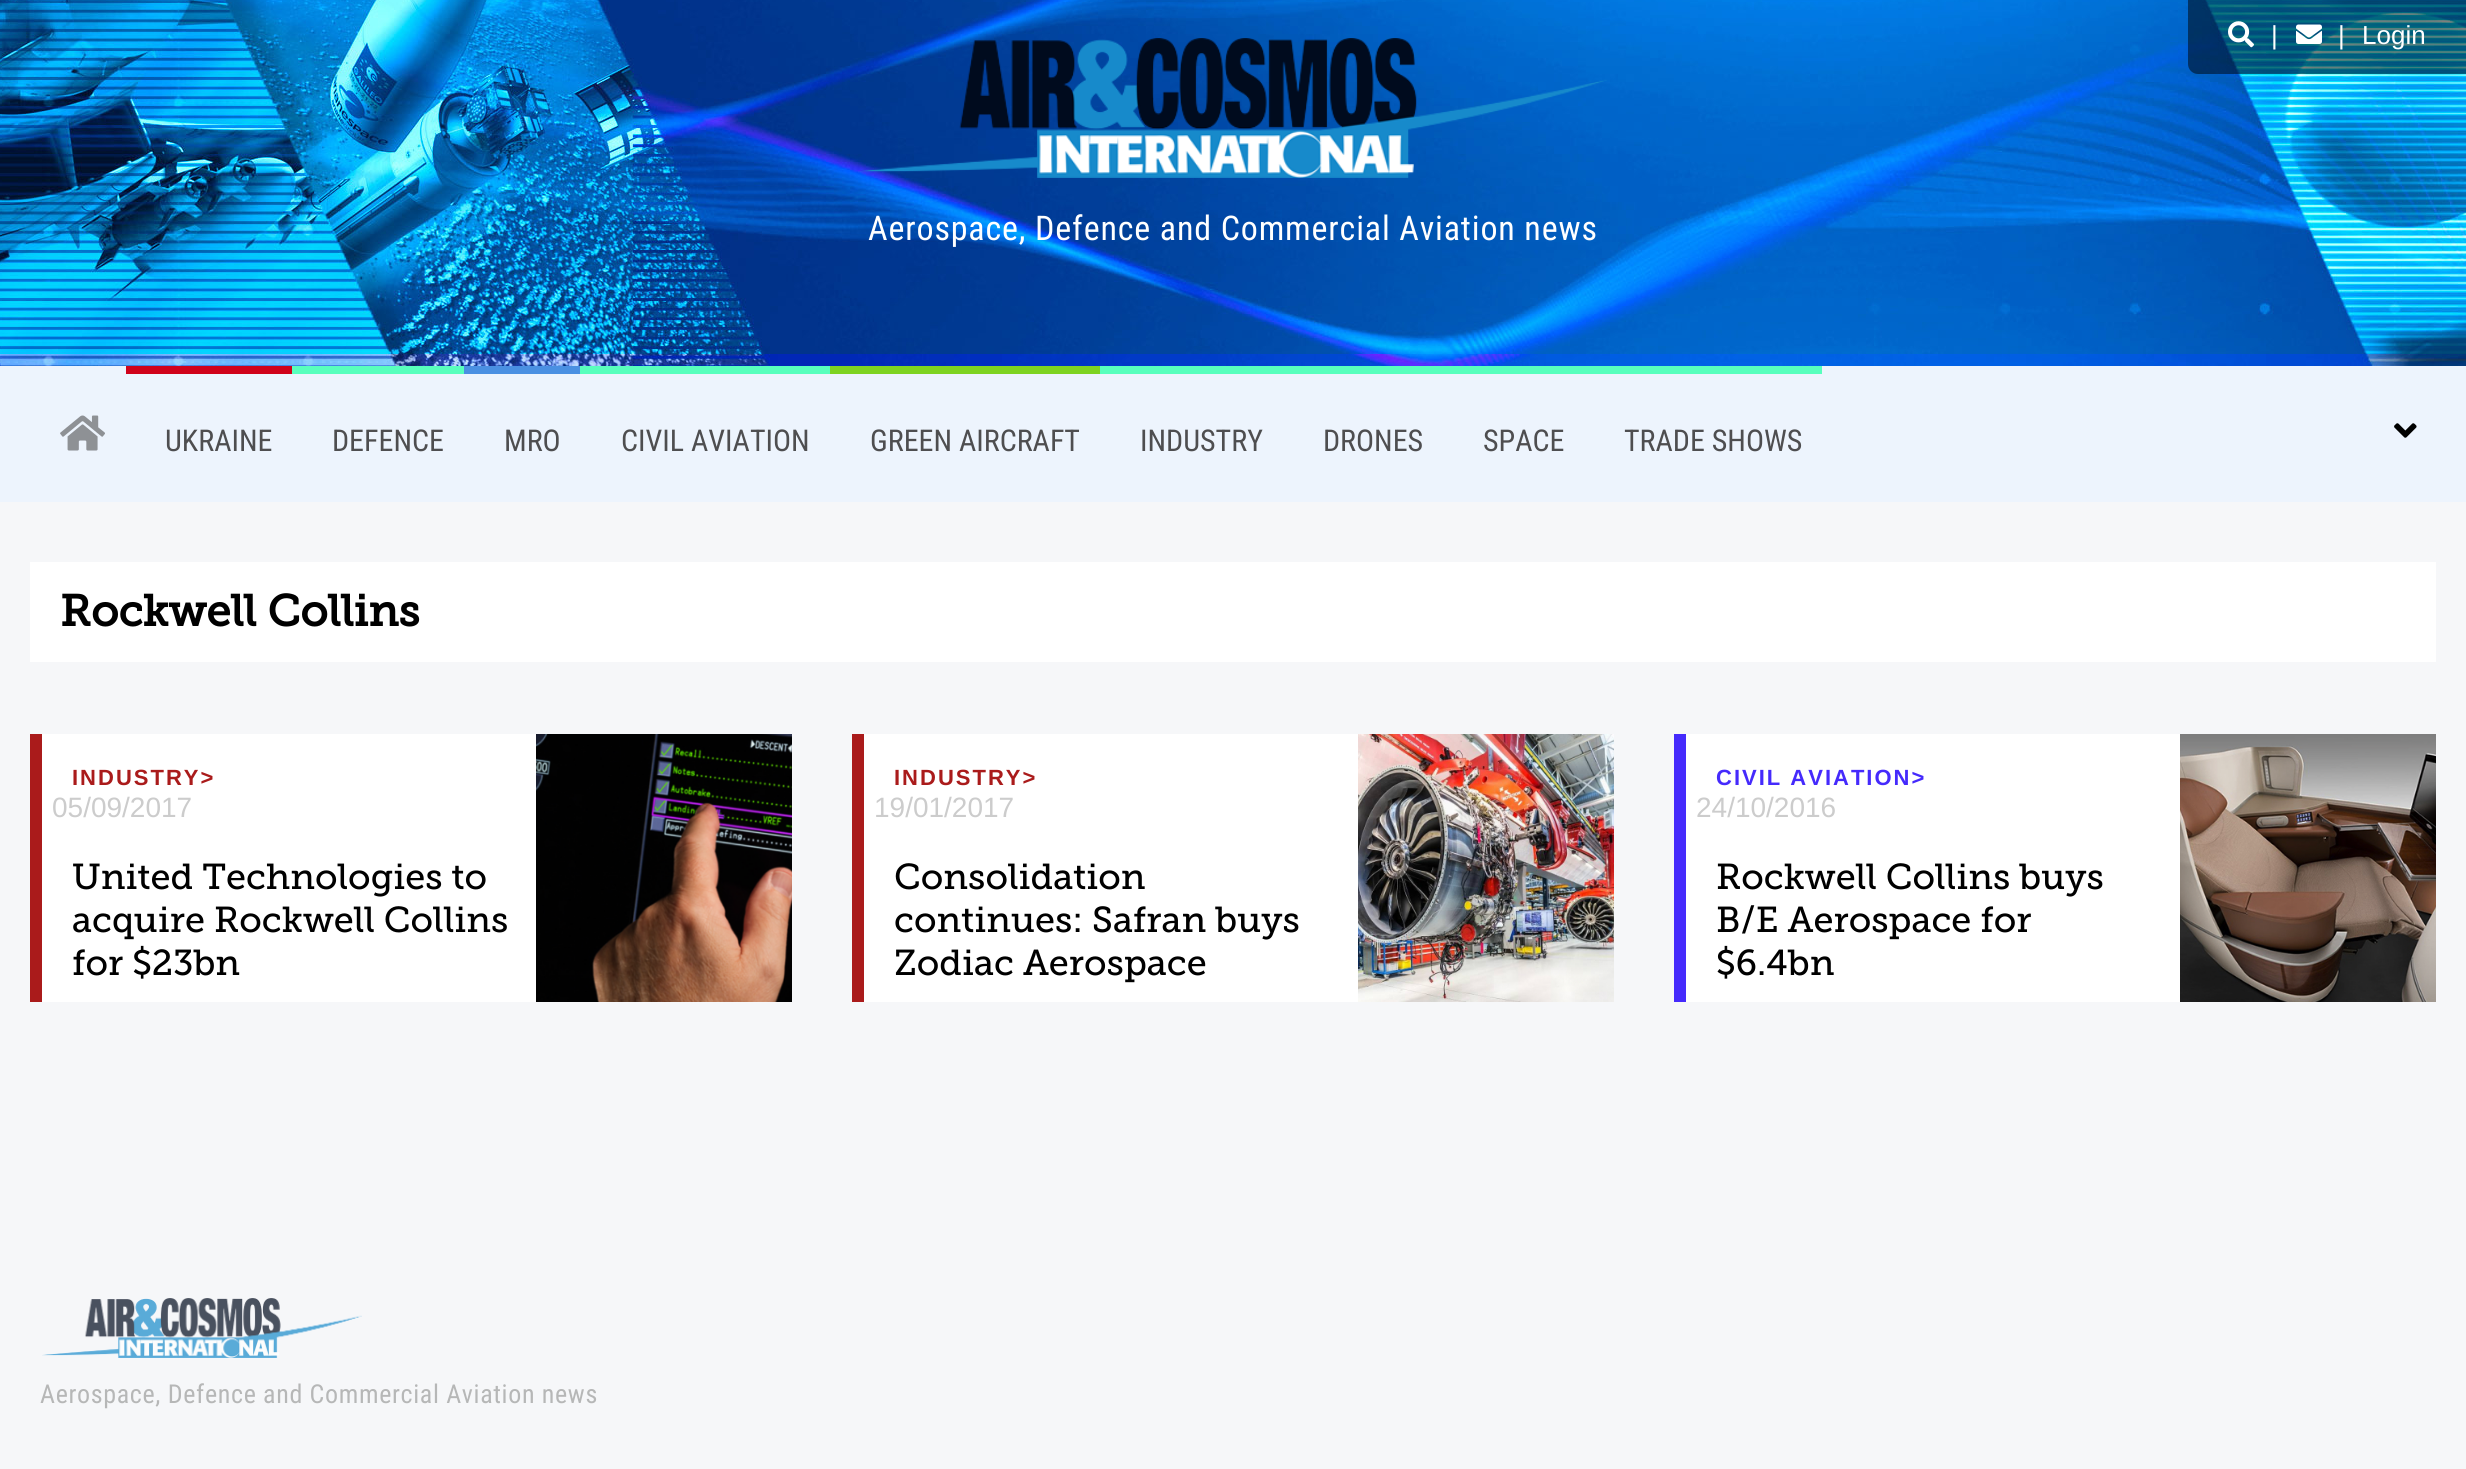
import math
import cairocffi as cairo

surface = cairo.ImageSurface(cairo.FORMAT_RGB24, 2466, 1469)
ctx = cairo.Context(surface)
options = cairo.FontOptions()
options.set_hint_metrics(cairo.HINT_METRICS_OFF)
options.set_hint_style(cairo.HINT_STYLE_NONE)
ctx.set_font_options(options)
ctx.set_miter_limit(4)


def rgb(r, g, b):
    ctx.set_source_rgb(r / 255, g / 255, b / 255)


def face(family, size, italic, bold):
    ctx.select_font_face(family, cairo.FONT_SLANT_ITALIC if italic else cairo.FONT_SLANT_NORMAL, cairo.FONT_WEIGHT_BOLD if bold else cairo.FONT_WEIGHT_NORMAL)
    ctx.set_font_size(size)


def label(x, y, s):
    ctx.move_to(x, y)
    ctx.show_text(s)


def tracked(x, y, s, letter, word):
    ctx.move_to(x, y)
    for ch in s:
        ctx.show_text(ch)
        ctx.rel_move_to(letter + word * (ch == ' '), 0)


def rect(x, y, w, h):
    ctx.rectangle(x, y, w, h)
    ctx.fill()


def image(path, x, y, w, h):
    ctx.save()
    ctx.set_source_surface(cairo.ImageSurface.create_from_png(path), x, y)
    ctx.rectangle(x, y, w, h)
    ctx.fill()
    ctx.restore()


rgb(255, 255, 255)
ctx.paint()
image('image2.png', 0, 0, 2466, 366)
ctx.set_source_rgba(0, 0, 0, 0.5)
ctx.new_path()
ctx.move_to(2188, 0)
ctx.line_to(2466, 0)
ctx.line_to(2466, 74)
ctx.line_to(2198, 74)
ctx.curve_to(2192.5, 74, 2188, 69.5, 2188, 64)
ctx.close_path()
ctx.fill()
image('image0.png', 2228, 21, 26, 27)
face('Liberation Sans', 26, 0, 0)
rgb(255, 255, 255)
label(2271, 44, '|')
image('image1.png', 2296, 24, 26, 20)
label(2338, 44, '|')
label(2362, 44, 'Login')
image('image3.png', 857, 38, 750, 140)
face('Roboto Condensed', 34, 0, 0)
tracked(868, 240, 'Aerospace, Defence and Commercial Aviation news', 0.85, 0)
rgb(237, 244, 253)
rect(0, 366, 2466, 136)
image('image4.png', 60, 415, 45, 36)
rgb(208, 2, 27)
rect(126, 366, 166, 8)
face('Roboto Condensed', 30, 0, 0)
rgb(78, 78, 80)
label(165, 451, 'UKRAINE')
rgb(88, 255, 189)
rect(292, 366, 172, 8)
rgb(78, 78, 80)
label(332, 451, 'DEFENCE')
rgb(74, 144, 226)
rect(464, 366, 116, 8)
rgb(78, 78, 80)
label(504, 451, 'MRO')
rgb(88, 255, 189)
rect(580, 366, 250, 8)
rgb(78, 78, 80)
label(621, 451, 'CIVIL AVIATION')
rgb(126, 211, 33)
rect(830, 366, 270, 8)
rgb(78, 78, 80)
label(870, 451, 'GREEN AIRCRAFT')
rgb(88, 255, 189)
rect(1100, 366, 722, 8)
rgb(78, 78, 80)
label(1140, 451, 'INDUSTRY')
label(1323, 451, 'DRONES')
label(1483, 451, 'SPACE')
label(1624, 451, 'TRADE SHOWS')
image('image5.png', 2394, 423, 23, 15)
rgb(246, 247, 249)
rect(0, 502, 2466, 967)
rgb(255, 255, 255)
rect(30, 562, 2406, 100)
face('Museo Slab', 44, 0, 1)
rgb(0, 0, 0)
label(60, 626, 'Rockwell Collins')
rgb(255, 255, 255)
rect(42, 734, 494, 268)
rgb(170, 27, 27)
rect(30, 734, 12, 268)
face('Liberation Sans', 22, 0, 1)
tracked(72, 785, 'INDUSTRY>', 2, 0)
image('image6.png', 536, 734, 256, 268)
face('Liberation Sans', 28, 0, 0)
rgb(204, 204, 204)
label(52, 817, '05/09/2017')
face('Museo Slab', 36, 0, 0)
rgb(0, 0, 0)
label(72, 889, 'United Technologies to')
label(72, 932, 'acquire Rockwell Collins')
label(72, 975, 'for $23bn')
rgb(255, 255, 255)
rect(864, 734, 494, 268)
rgb(170, 27, 27)
rect(852, 734, 12, 268)
face('Liberation Sans', 22, 0, 1)
tracked(894, 785, 'INDUSTRY>', 2, 0)
image('image7.png', 1358, 734, 256, 268)
face('Liberation Sans', 28, 0, 0)
rgb(204, 204, 204)
label(874, 817, '19/01/2017')
face('Museo Slab', 36, 0, 0)
rgb(0, 0, 0)
label(894, 889, 'Consolidation')
label(894, 932, 'continues: Safran buys')
label(894, 975, 'Zodiac Aerospace')
rgb(255, 255, 255)
rect(1686, 734, 494, 268)
rgb(69, 42, 252)
rect(1674, 734, 12, 268)
face('Liberation Sans', 22, 0, 1)
tracked(1716, 785, 'CIVIL AVIATION>', 2, 0)
image('image8.png', 2180, 734, 256, 268)
face('Liberation Sans', 28, 0, 0)
rgb(204, 204, 204)
label(1696, 817, '24/10/2016')
face('Museo Slab', 36, 0, 0)
rgb(0, 0, 0)
label(1716, 889, 'Rockwell Collins buys')
label(1716, 932, 'B/E Aerospace for')
label(1716, 975, '$6.4bn')
image('image9.png', 42, 1298, 320, 60)
face('Roboto Condensed', 26, 0, 0)
rgb(182, 183, 183)
tracked(40, 1403, 'Aerospace, Defence and Commercial Aviation news', 0.65, 0)
surface.write_to_png('render.png')
